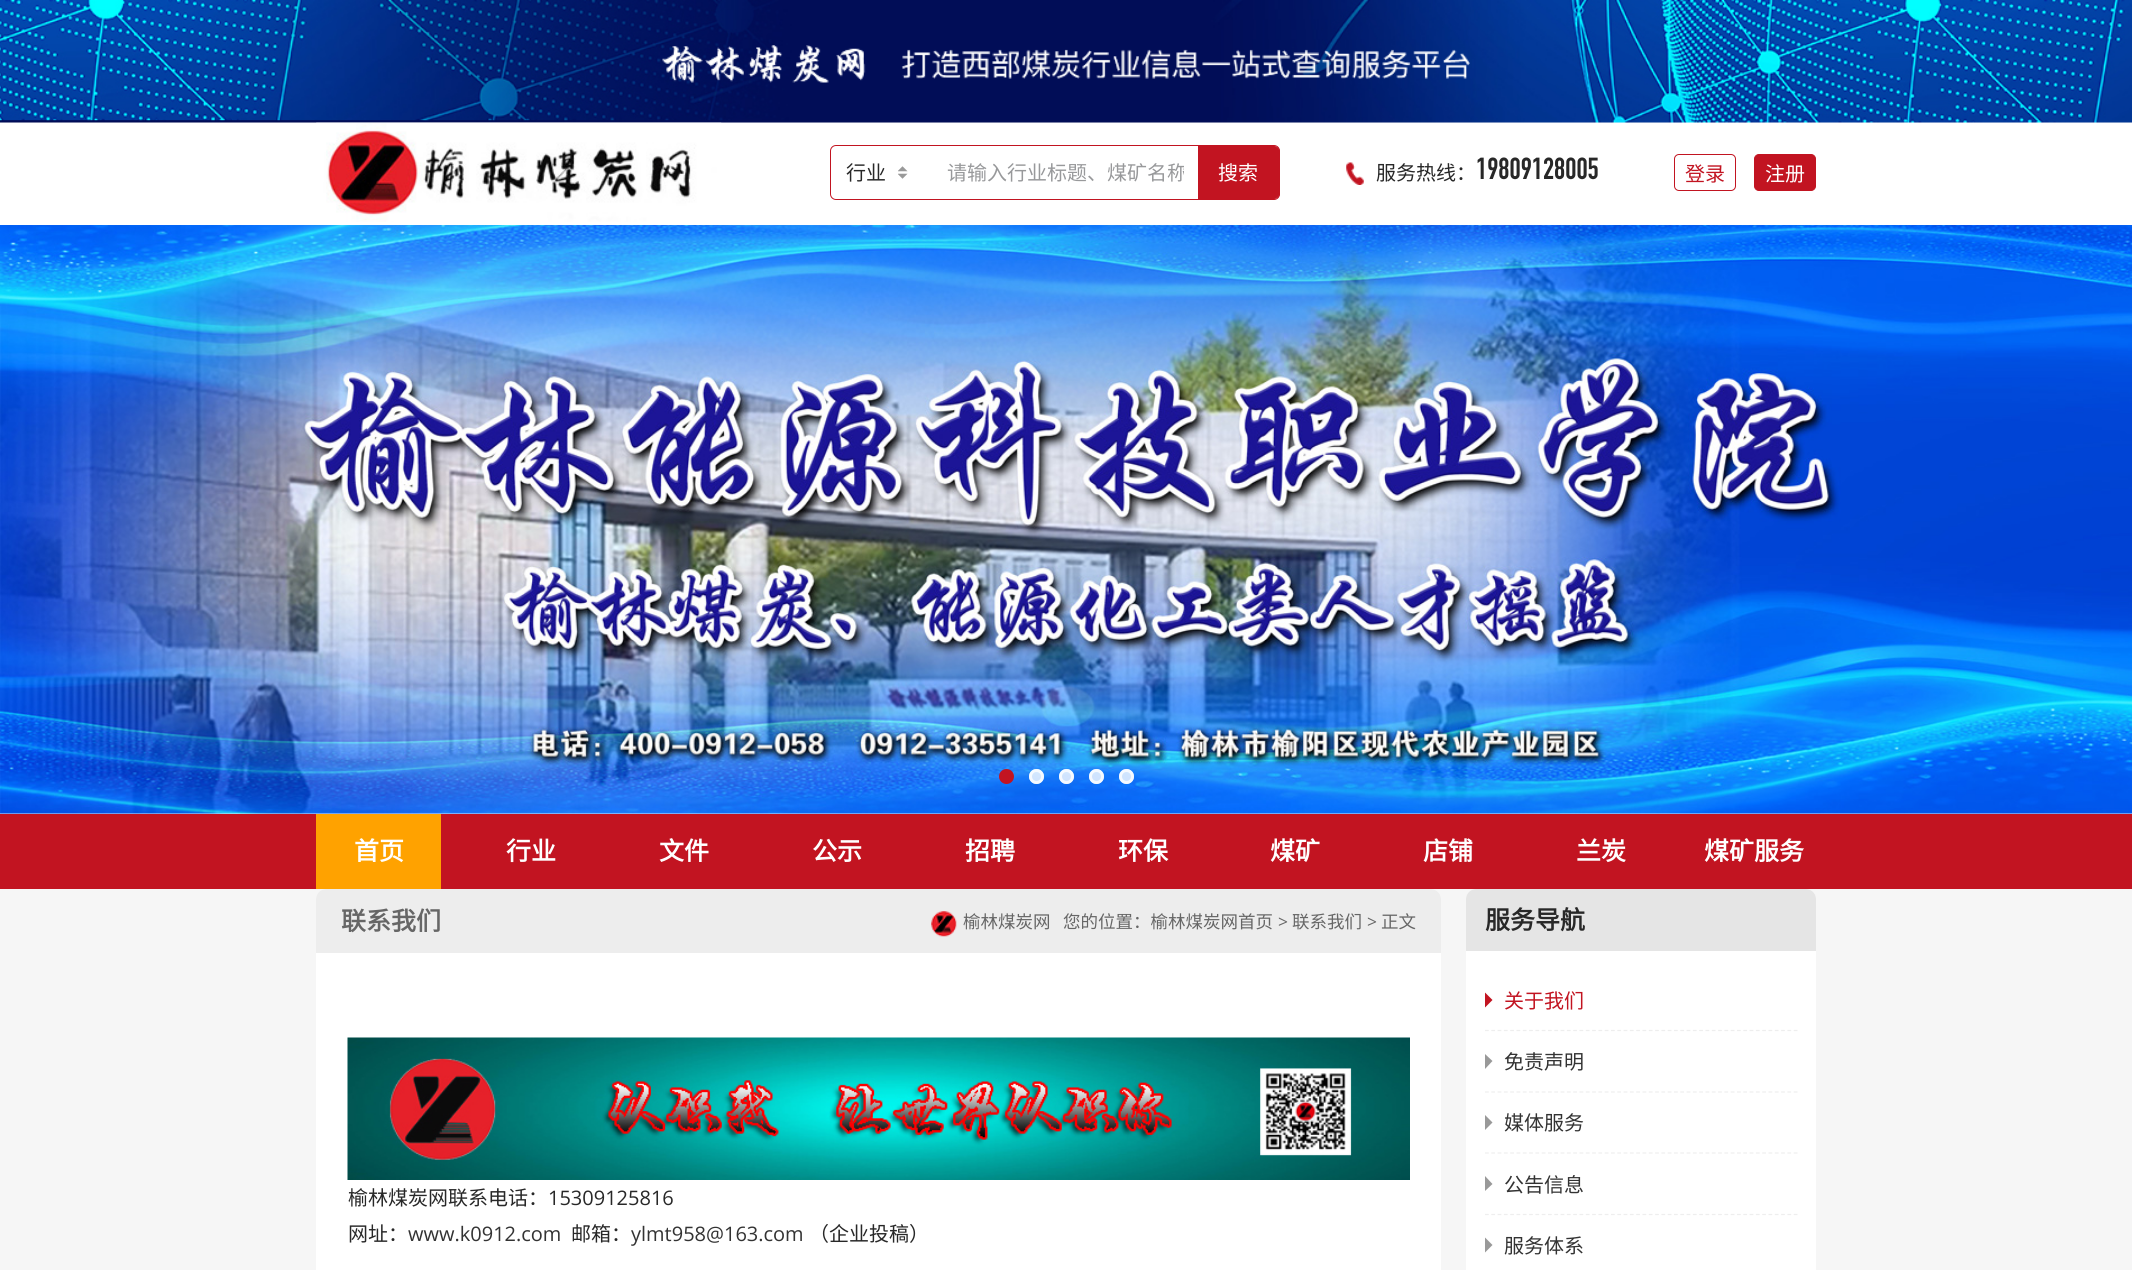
import math
import cairocffi as cairo

surface = cairo.ImageSurface(cairo.FORMAT_RGB24, 2132, 1270)
ctx = cairo.Context(surface)
options = cairo.FontOptions()
options.set_hint_metrics(cairo.HINT_METRICS_OFF)
options.set_hint_style(cairo.HINT_STYLE_NONE)
ctx.set_font_options(options)
ctx.set_miter_limit(4)


def rgb(r, g, b):
    ctx.set_source_rgb(r / 255, g / 255, b / 255)


def face(family, size, italic, bold):
    ctx.select_font_face(family, cairo.FONT_SLANT_ITALIC if italic else cairo.FONT_SLANT_NORMAL, cairo.FONT_WEIGHT_BOLD if bold else cairo.FONT_WEIGHT_NORMAL)
    ctx.set_font_size(size)


def label(x, y, s):
    ctx.move_to(x, y)
    ctx.show_text(s)


def rect(x, y, w, h):
    ctx.rectangle(x, y, w, h)
    ctx.fill()


def rrect(x, y, w, h, r):
    ctx.new_sub_path()
    for i, (u, v) in enumerate([(x + w - r, y + h - r), (x + r, y + h - r), (x + r, y + r), (x + w - r, y + r)]):
        ctx.arc(u, v, r, i * math.pi / 2, (i + 1) * math.pi / 2)
    ctx.close_path()


def image(path, x, y, w, h):
    ctx.save()
    ctx.set_source_surface(cairo.ImageSurface.create_from_png(path), x, y)
    ctx.rectangle(x, y, w, h)
    ctx.fill()
    ctx.restore()


rgb(246, 246, 246)
ctx.paint()
image('image0.png', 0, 0, 2132, 123)
image('image1.png', 662, 45, 808, 38)
rgb(255, 255, 255)
rect(0, 123, 2132, 102)
image('image2.png', 316, 122, 406, 100)
rrect(830.5, 145.5, 449, 54, 5.5)
rgb(194, 20, 33)
ctx.set_line_width(1)
ctx.stroke()
image('image3.png', 898, 166, 10, 13)
face('Noto Sans CJK SC', 20, 0, 0)
rgb(40, 40, 40)
label(846, 180, '行业')
ctx.save()
ctx.rectangle(946, 156, 238, 30)
ctx.clip()
rgb(152, 153, 155)
label(947, 180, '请输入行业标题、煤矿名称')
ctx.restore()
rgb(194, 20, 33)
ctx.new_path()
ctx.move_to(1198.5, 146.5)
ctx.line_to(1274, 146.5)
ctx.curve_to(1277, 146.5, 1279.5, 149, 1279.5, 152)
ctx.line_to(1279.5, 193)
ctx.curve_to(1279.5, 196, 1277, 198.5, 1274, 198.5)
ctx.line_to(1198.5, 198.5)
ctx.close_path()
ctx.fill_preserve()
ctx.stroke()
rgb(255, 255, 255)
label(1218, 180, '搜索')
image('image4.png', 1346, 162, 18, 23)
rgb(40, 40, 40)
label(1376, 180, '服务热线：')
face('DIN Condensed', 30, 0, 1)
label(1476, 179, '19809128005')
rrect(1674.5, 154.5, 61, 36, 4.5)
rgb(194, 20, 33)
ctx.stroke()
face('Noto Sans CJK SC', 20, 0, 0)
label(1685, 181, '登录')
rrect(1754.5, 154.5, 61, 36, 4.5)
ctx.fill_preserve()
ctx.stroke()
rgb(255, 255, 255)
label(1765, 181, '注册')
image('image5.png', 0, 225, 2132, 589)
rgb(194, 20, 33)
ctx.arc(1006.5, 776.5, 6, 0, 2 * math.pi)
ctx.fill_preserve()
ctx.set_line_width(3)
ctx.stroke()
ctx.set_source_rgba(1, 1, 1, 0.8)
ctx.arc(1036.5, 776.5, 7.5, 0, 2 * math.pi)
ctx.fill()
ctx.arc(1036.5, 776.5, 6, 0, 2 * math.pi)
ctx.stroke()
ctx.arc(1066.5, 776.5, 7.5, 0, 2 * math.pi)
ctx.fill()
ctx.arc(1066.5, 776.5, 6, 0, 2 * math.pi)
ctx.stroke()
ctx.arc(1096.5, 776.5, 7.5, 0, 2 * math.pi)
ctx.fill()
ctx.arc(1096.5, 776.5, 6, 0, 2 * math.pi)
ctx.stroke()
ctx.arc(1126.5, 776.5, 7.5, 0, 2 * math.pi)
ctx.fill()
ctx.arc(1126.5, 776.5, 6, 0, 2 * math.pi)
ctx.stroke()
rgb(194, 20, 33)
rect(0, 814, 2132, 75)
rgb(255, 162, 0)
rect(316, 814, 125, 75)
face('Noto Sans CJK SC', 25, 0, 1)
rgb(255, 255, 255)
label(354, 860, '首页')
label(506, 860, '行业')
label(659, 860, '文件')
label(812, 860, '公示')
label(965, 860, '招聘')
label(1118, 860, '环保')
label(1270, 860, '煤矿')
label(1423, 860, '店铺')
label(1576, 860, '兰炭')
label(1704, 860, '煤矿服务')
rrect(316, 889, 1125, 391, 10)
ctx.fill()
rgb(237, 237, 237)
ctx.new_path()
ctx.move_to(326, 889)
ctx.line_to(1431, 889)
ctx.curve_to(1436.5, 889, 1441, 893.5, 1441, 899)
ctx.line_to(1441, 953)
ctx.line_to(316, 953)
ctx.line_to(316, 899)
ctx.curve_to(316, 893.5, 320.5, 889, 326, 889)
ctx.close_path()
ctx.fill()
rgb(102, 102, 102)
label(341, 930, '联系我们')
image('image6.png', 931, 911, 26, 26)
face('Noto Sans CJK SC', 17.5, 0, 0)
label(963, 928, '榆林煤炭网')
label(1063, 928, '您的位置：榆林煤炭网首页')
face('Open Sans', 17.5, 0, 0)
label(1278, 928, '>')
face('Noto Sans CJK SC', 17.5, 0, 0)
label(1292, 928, '联系我们')
face('Open Sans', 17.5, 0, 0)
label(1367, 928, '>')
face('Noto Sans CJK SC', 17.5, 0, 0)
label(1381, 928, '正文')
image('image7.png', 347, 1037, 1063, 143)
face('Noto Sans CJK SC', 20, 0, 0)
rgb(40, 40, 40)
label(348, 1205, '榆林煤炭网联系电话：')
face('Open Sans', 20, 0, 0)
label(548, 1205, '15309125816')
face('Noto Sans CJK SC', 20, 0, 0)
label(348, 1241, '网址：')
face('Open Sans', 20, 0, 0)
rgb(51, 51, 51)
label(408, 1241, 'www.k0912.com')
face('Noto Sans CJK SC', 20, 0, 0)
rgb(40, 40, 40)
label(571, 1241, '邮箱：')
face('Open Sans', 20, 0, 0)
rgb(51, 51, 51)
label(631, 1241, 'ylmt958@163.com')
face('Noto Sans CJK SC', 20, 0, 0)
rgb(40, 40, 40)
label(809, 1241, '（企业投稿）')
rgb(255, 255, 255)
rrect(1466, 889, 350, 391, 10)
ctx.fill()
rgb(229, 229, 229)
ctx.new_path()
ctx.move_to(1476, 889)
ctx.line_to(1806, 889)
ctx.curve_to(1811.5, 889, 1816, 893.5, 1816, 899)
ctx.line_to(1816, 951)
ctx.line_to(1466, 951)
ctx.line_to(1466, 899)
ctx.curve_to(1466, 893.5, 1470.5, 889, 1476, 889)
ctx.close_path()
ctx.fill()
face('Noto Sans CJK SC', 25, 0, 1)
rgb(40, 40, 40)
label(1485, 929, '服务导航')
ctx.new_path()
ctx.move_to(1485, 1030.5)
ctx.line_to(1797.5, 1030.5)
rgb(238, 238, 238)
ctx.set_line_width(1.2)
ctx.set_dash([3.75, 2.55])
ctx.stroke()
rgb(194, 20, 33)
ctx.new_path()
ctx.move_to(1485, 1007.5)
ctx.line_to(1485, 992.5)
ctx.line_to(1492.5, 1000)
ctx.close_path()
ctx.fill()
face('Noto Sans CJK SC', 20, 0, 0)
label(1504, 1008, '关于我们')
ctx.new_path()
ctx.move_to(1485, 1092)
ctx.line_to(1797.5, 1092)
rgb(238, 238, 238)
ctx.stroke()
rgb(153, 153, 153)
ctx.new_path()
ctx.move_to(1485, 1069)
ctx.line_to(1485, 1054)
ctx.line_to(1492.5, 1061)
ctx.close_path()
ctx.fill()
rgb(51, 51, 51)
label(1504, 1069, '免责声明')
ctx.new_path()
ctx.move_to(1485, 1153)
ctx.line_to(1797.5, 1153)
rgb(238, 238, 238)
ctx.stroke()
rgb(153, 153, 153)
ctx.new_path()
ctx.move_to(1485, 1130)
ctx.line_to(1485, 1115)
ctx.line_to(1492.5, 1122.5)
ctx.close_path()
ctx.fill()
rgb(51, 51, 51)
label(1504, 1130, '媒体服务')
ctx.new_path()
ctx.move_to(1485, 1214.5)
ctx.line_to(1797.5, 1214.5)
rgb(238, 238, 238)
ctx.stroke()
rgb(153, 153, 153)
ctx.new_path()
ctx.move_to(1485, 1191)
ctx.line_to(1485, 1176)
ctx.line_to(1492.5, 1184)
ctx.close_path()
ctx.fill()
rgb(51, 51, 51)
label(1504, 1192, '公告信息')
rgb(153, 153, 153)
ctx.new_path()
ctx.move_to(1485, 1252.5)
ctx.line_to(1485, 1237.5)
ctx.line_to(1492.5, 1245)
ctx.close_path()
ctx.fill()
rgb(51, 51, 51)
label(1504, 1253, '服务体系')
surface.write_to_png('render.png')
